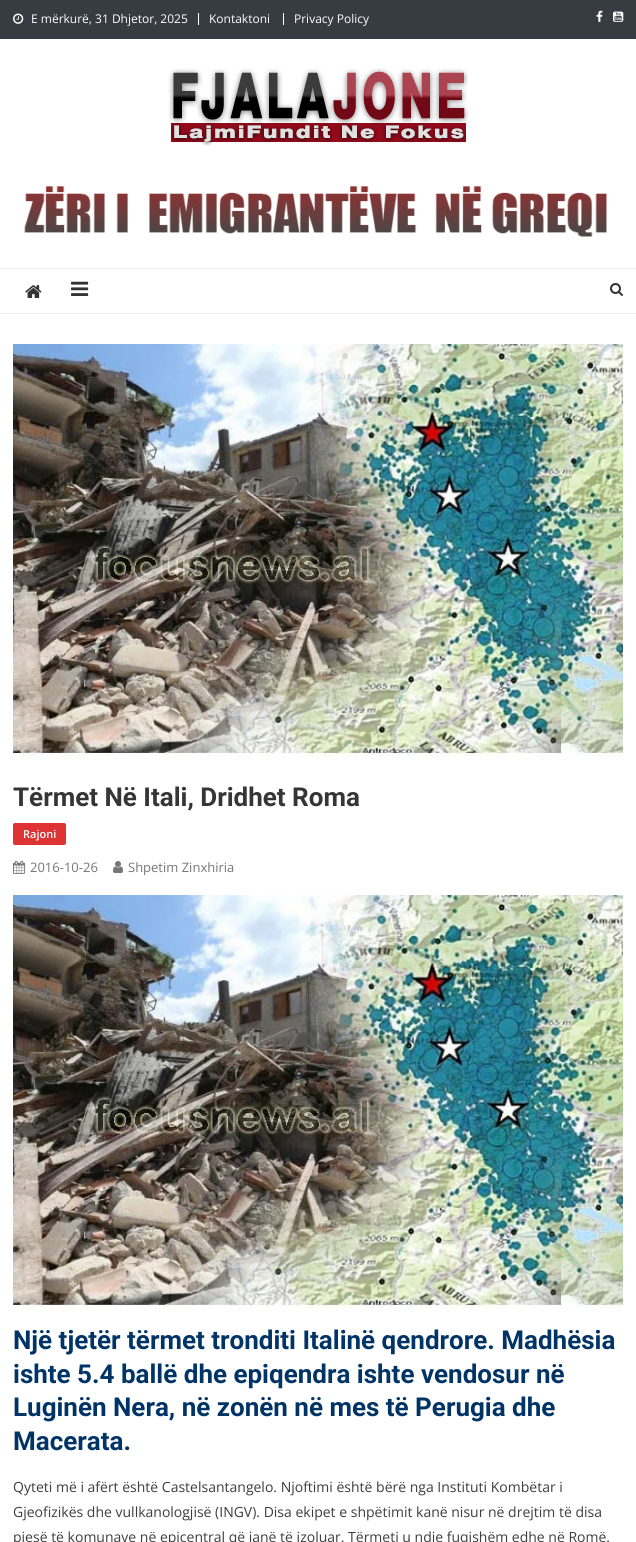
import math
import cairocffi as cairo

surface = cairo.ImageSurface(cairo.FORMAT_RGB24, 636, 1542)
ctx = cairo.Context(surface)
options = cairo.FontOptions()
options.set_hint_metrics(cairo.HINT_METRICS_OFF)
options.set_hint_style(cairo.HINT_STYLE_NONE)
ctx.set_font_options(options)
ctx.set_miter_limit(4)


def rgb(r, g, b):
    ctx.set_source_rgb(r / 255, g / 255, b / 255)


def face(family, size, italic, bold):
    ctx.select_font_face(family, cairo.FONT_SLANT_ITALIC if italic else cairo.FONT_SLANT_NORMAL, cairo.FONT_WEIGHT_BOLD if bold else cairo.FONT_WEIGHT_NORMAL)
    ctx.set_font_size(size)


def label(x, y, s):
    ctx.move_to(x, y)
    ctx.show_text(s)


def rect(x, y, w, h):
    ctx.rectangle(x, y, w, h)
    ctx.fill()


def rrect(x, y, w, h, r):
    ctx.new_sub_path()
    for i, (u, v) in enumerate([(x + w - r, y + h - r), (x + r, y + h - r), (x + r, y + r), (x + w - r, y + r)]):
        ctx.arc(u, v, r, i * math.pi / 2, (i + 1) * math.pi / 2)
    ctx.close_path()


def image(path, x, y, w, h):
    ctx.save()
    ctx.set_source_surface(cairo.ImageSurface.create_from_png(path), x, y)
    ctx.rectangle(x, y, w, h)
    ctx.fill()
    ctx.restore()


rgb(255, 255, 255)
ctx.paint()
rgb(55, 60, 66)
rect(0, 0, 636, 39)
image('image0.png', 13, 13, 11, 11)
face('Open Sans', 12, 0, 0)
rgb(255, 255, 255)
label(31, 23, 'E mërkurë, 31 Dhjetor, 2025')
rect(198, 13, 1, 12)
label(209, 23, 'Kontaktoni')
rect(283, 13, 1, 12)
label(294, 23, 'Privacy Policy')
image('image1.png', 596, 10, 7, 12)
image('image2.png', 613, 11, 11, 11)
image('image3.png', 169, 68, 299, 78)
image('image4.png', 24, 186, 583, 51)
rgb(238, 238, 238)
rect(0, 268, 636, 1)
rect(0, 313, 636, 1)
image('image5.png', 25, 285, 17, 13)
image('image6.png', 71, 281, 18, 15)
image('image7.png', 610, 283, 13, 13)
image('image8.png', 13, 344, 610, 416)
face('Roboto', 26, 0, 1)
rgb(53, 53, 53)
label(13, 806, 'Tërmet Në Itali, Dridhet Roma')
rgb(221, 51, 51)
rrect(13, 823, 53, 22, 2)
ctx.fill()
face('Open Sans SemiBold', 11, 0, 0)
rgb(255, 255, 255)
label(23, 838, 'Rajoni')
image('image9.png', 13, 860, 13, 14)
face('Open Sans', 13, 0, 0)
rgb(118, 118, 118)
label(30, 872, '2016-10-26')
image('image10.png', 113, 861, 10, 12)
label(128, 872, 'Shpetim Zinxhiria')
image('image11.png', 13, 895, 610, 417)
face('Roboto', 26, 0, 1)
rgb(0, 51, 102)
label(13, 1349, 'Një tjetër tërmet tronditi Italinë qendrore. Madhësia')
label(13, 1383, 'ishte 5.4 ballë dhe epiqendra ishte vendosur në')
label(13, 1416, 'Luginën Nera, në zonën në mes të Perugia dhe')
label(13, 1450, 'Macerata.')
face('Open Sans', 14, 0, 0)
rgb(61, 61, 61)
label(13, 1492, 'Qyteti më i afërt është Castelsantangelo. Njoftimi është bërë nga Instituti Kombëtar i')
label(13, 1517, 'Gjeofizikës dhe vullkanologjisë (INGV). Disa ekipet e shpëtimit kanë nisur në drejtim të disa')
label(13, 1542, 'pjesë të komunave në epicentral që janë të izoluar. Tërmeti u ndje fuqishëm edhe në Romë.')
surface.write_to_png('render.png')
